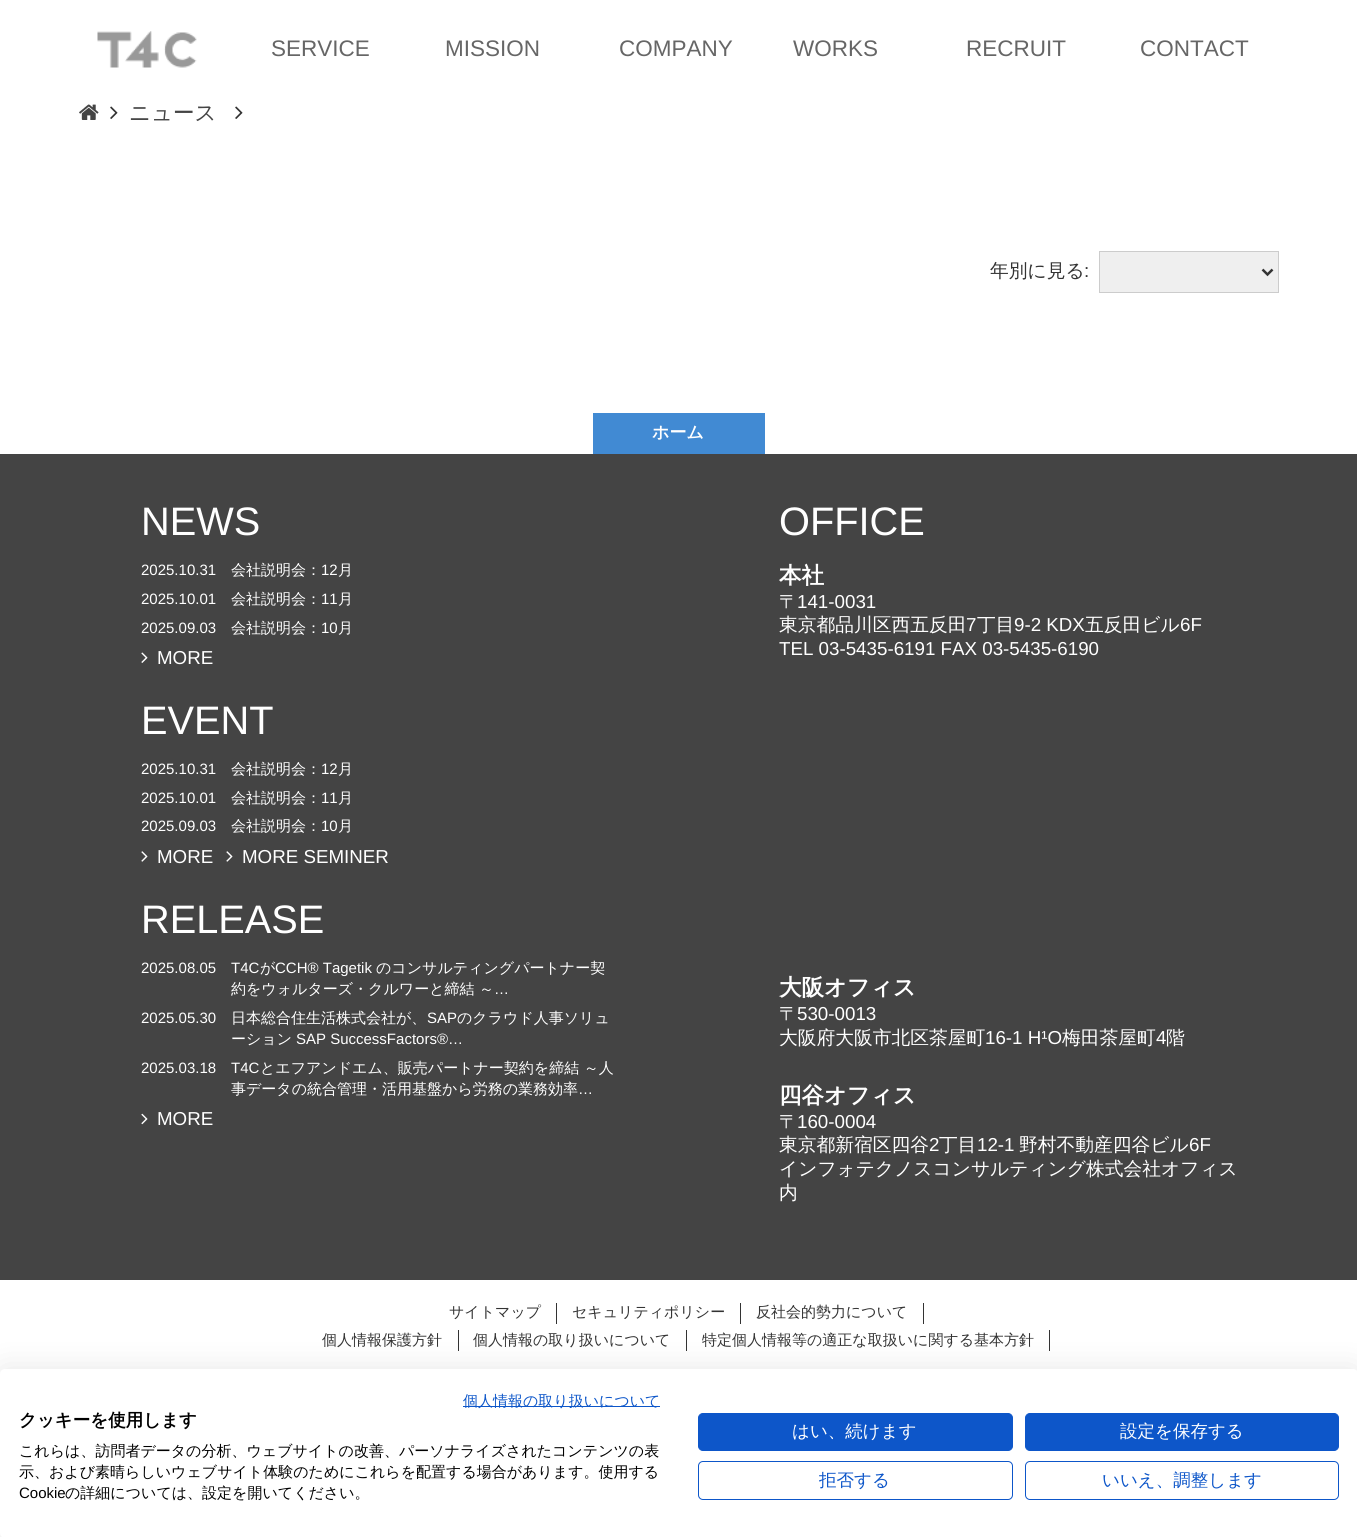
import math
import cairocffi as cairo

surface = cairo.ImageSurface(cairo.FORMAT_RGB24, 1357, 1537)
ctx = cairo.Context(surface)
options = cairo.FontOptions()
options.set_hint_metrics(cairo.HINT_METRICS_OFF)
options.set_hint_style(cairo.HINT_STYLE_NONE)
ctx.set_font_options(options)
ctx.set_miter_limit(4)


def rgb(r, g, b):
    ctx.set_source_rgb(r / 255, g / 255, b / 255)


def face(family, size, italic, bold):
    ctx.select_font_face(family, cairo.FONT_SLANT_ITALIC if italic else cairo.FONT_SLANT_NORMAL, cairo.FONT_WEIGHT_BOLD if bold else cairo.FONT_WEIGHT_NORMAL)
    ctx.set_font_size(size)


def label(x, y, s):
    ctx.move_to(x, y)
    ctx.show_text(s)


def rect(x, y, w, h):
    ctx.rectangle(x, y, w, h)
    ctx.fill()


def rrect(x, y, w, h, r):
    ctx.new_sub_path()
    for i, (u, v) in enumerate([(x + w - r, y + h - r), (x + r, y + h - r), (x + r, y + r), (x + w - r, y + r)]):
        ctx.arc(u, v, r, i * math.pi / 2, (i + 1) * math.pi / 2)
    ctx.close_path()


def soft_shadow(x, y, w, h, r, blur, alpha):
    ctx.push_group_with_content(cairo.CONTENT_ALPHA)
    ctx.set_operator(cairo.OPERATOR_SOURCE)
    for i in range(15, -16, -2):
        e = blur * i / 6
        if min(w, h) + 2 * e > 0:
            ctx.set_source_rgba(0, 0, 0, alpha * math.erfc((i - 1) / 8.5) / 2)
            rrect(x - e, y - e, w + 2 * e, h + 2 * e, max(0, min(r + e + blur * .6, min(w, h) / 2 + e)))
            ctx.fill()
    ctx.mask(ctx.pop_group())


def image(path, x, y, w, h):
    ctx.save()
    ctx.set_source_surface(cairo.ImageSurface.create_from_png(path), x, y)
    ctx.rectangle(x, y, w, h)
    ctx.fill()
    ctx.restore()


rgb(255, 255, 255)
ctx.paint()
image('image0.png', 97, 31, 100, 37)
face('Liberation Sans', 22.5, 0, 0)
rgb(102, 102, 102)
label(271, 56, 'SERVICE')
label(445, 56, 'MISSION')
label(619, 56, 'COMPANY')
label(793, 56, 'WORKS')
label(966, 56, 'RECRUIT')
label(1140, 56, 'CONTACT')
image('image1.png', 79, 104, 20, 16)
image('image2.png', 110, 106, 8, 13)
face('WenQuanYi Zen Hei Medium', 21.5, 0, 0)
rgb(68, 68, 68)
label(129, 120, 'ニュース')
image('image2.png', 235, 106, 8, 13)
face('WenQuanYi Zen Hei Medium', 18.75, 0, 0)
rgb(51, 51, 51)
label(990, 277, '年別に見る')
face('Liberation Sans', 18.75, 0, 0)
label(1084, 277, ':')
rgb(239, 239, 239)
ctx.rectangle(1099.5, 251.5, 179, 41)
ctx.fill_preserve()
rgb(204, 204, 204)
ctx.set_line_width(1)
ctx.stroke()
ctx.new_path()
ctx.move_to(1262.5, 269.5)
ctx.line_to(1267.5, 274.5)
ctx.line_to(1272.5, 269.5)
rgb(51, 51, 51)
ctx.set_line_width(2.5)
ctx.stroke()
rgb(65, 138, 211)
rect(593, 413, 172, 41)
face('WenQuanYi Zen Hei', 17, 0, 1)
rgb(255, 255, 255)
label(652, 438, 'ホーム')
rgb(68, 68, 68)
rect(0, 454, 1357, 826)
face('Liberation Sans', 39.75, 0, 0)
rgb(255, 255, 255)
label(141, 535, 'NEWS')
face('Liberation Sans', 15, 0, 0)
label(141, 575, '2025.10.31')
face('WenQuanYi Zen Hei Medium', 15, 0, 0)
label(231, 575, '会社説明会：')
face('Liberation Sans', 15, 0, 0)
label(321, 575, '12')
face('WenQuanYi Zen Hei Medium', 15, 0, 0)
label(338, 575, '月')
face('Liberation Sans', 15, 0, 0)
label(141, 604, '2025.10.01')
face('WenQuanYi Zen Hei Medium', 15, 0, 0)
label(231, 604, '会社説明会：')
face('Liberation Sans', 15, 0, 0)
label(321, 604, '11')
face('WenQuanYi Zen Hei Medium', 15, 0, 0)
label(338, 604, '月')
face('Liberation Sans', 15, 0, 0)
label(141, 633, '2025.09.03')
face('WenQuanYi Zen Hei Medium', 15, 0, 0)
label(231, 633, '会社説明会：')
face('Liberation Sans', 15, 0, 0)
label(321, 633, '10')
face('WenQuanYi Zen Hei Medium', 15, 0, 0)
label(338, 633, '月')
image('image3.png', 141, 652, 7, 11)
face('Liberation Sans', 18.75, 0, 0)
label(157, 664, 'MORE')
face('Liberation Sans', 39.75, 0, 0)
label(141, 734, 'EVENT')
face('Liberation Sans', 15, 0, 0)
label(141, 774, '2025.10.31')
face('WenQuanYi Zen Hei Medium', 15, 0, 0)
label(231, 774, '会社説明会：')
face('Liberation Sans', 15, 0, 0)
label(321, 774, '12')
face('WenQuanYi Zen Hei Medium', 15, 0, 0)
label(338, 774, '月')
face('Liberation Sans', 15, 0, 0)
label(141, 803, '2025.10.01')
face('WenQuanYi Zen Hei Medium', 15, 0, 0)
label(231, 803, '会社説明会：')
face('Liberation Sans', 15, 0, 0)
label(321, 803, '11')
face('WenQuanYi Zen Hei Medium', 15, 0, 0)
label(338, 803, '月')
face('Liberation Sans', 15, 0, 0)
label(141, 831, '2025.09.03')
face('WenQuanYi Zen Hei Medium', 15, 0, 0)
label(231, 831, '会社説明会：')
face('Liberation Sans', 15, 0, 0)
label(321, 831, '10')
face('WenQuanYi Zen Hei Medium', 15, 0, 0)
label(338, 831, '月')
image('image4.png', 141, 851, 7, 11)
face('Liberation Sans', 18.75, 0, 0)
label(157, 863, 'MORE')
image('image4.png', 226, 851, 7, 11)
label(242, 863, 'MORE SEMINER')
face('Liberation Sans', 39.75, 0, 0)
label(141, 933, 'RELEASE')
face('Liberation Sans', 15, 0, 0)
label(141, 973, '2025.08.05')
label(231, 973, 'T4C')
face('WenQuanYi Zen Hei Medium', 15, 0, 0)
label(260, 973, 'が')
face('Liberation Sans', 15, 0, 0)
label(275, 973, 'CCH® Tagetik')
face('WenQuanYi Zen Hei Medium', 15, 0, 0)
label(376, 973, 'のコンサルティングパートナー契')
label(231, 994, '約をウォルターズ・クルワーと締結 ～')
face('Liberation Sans', 15, 0, 0)
label(494, 994, '…')
label(141, 1023, '2025.05.30')
face('WenQuanYi Zen Hei Medium', 15, 0, 0)
label(231, 1023, '日本総合住生活株式会社が、')
face('Liberation Sans', 15, 0, 0)
label(427, 1023, 'SAP')
face('WenQuanYi Zen Hei Medium', 15, 0, 0)
label(457, 1023, 'のクラウド人事ソリュ')
label(231, 1044, 'ーション')
face('Liberation Sans', 15, 0, 0)
label(296, 1044, 'SAP SuccessFactors®…')
label(141, 1073, '2025.03.18')
label(231, 1073, 'T4C')
face('WenQuanYi Zen Hei Medium', 15, 0, 0)
label(260, 1073, 'とエフアンドエム、販売パートナー契約を締結 ～人')
label(231, 1094, '事データの統合管理・活用基盤から労務の業務効率')
face('Liberation Sans', 15, 0, 0)
label(578, 1094, '…')
image('image5.png', 141, 1113, 7, 12)
face('Liberation Sans', 18.75, 0, 0)
label(157, 1125, 'MORE')
face('Liberation Sans', 39.75, 0, 0)
label(779, 535, 'OFFICE')
face('WenQuanYi Zen Hei', 22.5, 0, 1)
label(779, 583, '本社')
face('WenQuanYi Zen Hei Medium', 18.75, 0, 0)
label(779, 608, '〒')
face('Liberation Sans', 18.75, 0, 0)
label(797, 608, '141-0031')
face('WenQuanYi Zen Hei Medium', 18.75, 0, 0)
label(779, 631, '東京都品川区西五反田')
face('Liberation Sans', 18.75, 0, 0)
label(966, 631, '7')
face('WenQuanYi Zen Hei Medium', 18.75, 0, 0)
label(977, 631, '丁目')
face('Liberation Sans', 18.75, 0, 0)
label(1014, 631, '9-2 KDX')
face('WenQuanYi Zen Hei Medium', 18.75, 0, 0)
label(1085, 631, '五反田ビル')
face('Liberation Sans', 18.75, 0, 0)
label(1180, 631, '6F')
label(779, 655, 'TEL 03-5435-6191 FAX 03-5435-6190')
face('WenQuanYi Zen Hei', 22.5, 0, 1)
label(779, 995, '大阪オフィス')
face('WenQuanYi Zen Hei Medium', 18.75, 0, 0)
label(779, 1020, '〒')
face('Liberation Sans', 18.75, 0, 0)
label(797, 1020, '530-0013')
face('WenQuanYi Zen Hei Medium', 18.75, 0, 0)
label(779, 1044, '大阪府大阪市北区茶屋町')
face('Liberation Sans', 18.75, 0, 0)
label(985, 1044, '16-1 H¹O')
face('WenQuanYi Zen Hei Medium', 18.75, 0, 0)
label(1062, 1044, '梅田茶屋町')
face('Liberation Sans', 18.75, 0, 0)
label(1156, 1044, '4')
face('WenQuanYi Zen Hei Medium', 18.75, 0, 0)
label(1166, 1044, '階')
face('WenQuanYi Zen Hei', 22.5, 0, 1)
label(779, 1103, '四谷オフィス')
face('WenQuanYi Zen Hei Medium', 18.75, 0, 0)
label(779, 1128, '〒')
face('Liberation Sans', 18.75, 0, 0)
label(797, 1128, '160-0004')
face('WenQuanYi Zen Hei Medium', 18.75, 0, 0)
label(779, 1151, '東京都新宿区四谷')
face('Liberation Sans', 18.75, 0, 0)
label(929, 1151, '2')
face('WenQuanYi Zen Hei Medium', 18.75, 0, 0)
label(939, 1151, '丁目')
face('Liberation Sans', 18.75, 0, 0)
label(977, 1151, '12-1')
face('WenQuanYi Zen Hei Medium', 18.75, 0, 0)
label(1019, 1151, '野村不動産四谷ビル')
face('Liberation Sans', 18.75, 0, 0)
label(1189, 1151, '6F')
face('WenQuanYi Zen Hei Medium', 18.75, 0, 0)
label(779, 1175, 'インフォテクノスコンサルティング株式会社オフィス')
label(779, 1199, '内')
rgb(51, 51, 51)
rect(556, 1303, 1, 21)
face('WenQuanYi Zen Hei Medium', 15, 0, 0)
label(449, 1317, 'サイトマップ')
rect(740, 1303, 1, 21)
label(572, 1317, 'セキュリティポリシー')
rect(923, 1303, 1, 21)
label(756, 1317, '反社会的勢力について')
rect(458, 1330, 1, 21)
label(322, 1345, '個人情報保護方針')
rect(686, 1330, 1, 21)
label(473, 1345, '個人情報の取り扱いについて')
rect(1049, 1330, 1, 21)
label(702, 1345, '特定個人情報等の適正な取扱いに関する基本方針')
rgb(0, 0, 0)
soft_shadow(0, 1369, 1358, 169, 5, 15, 0.1)
rgb(255, 255, 255)
rrect(0, 1369, 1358, 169, 5)
ctx.fill()
rgb(13, 86, 201)
rect(463, 1406, 197, 1)
label(463, 1406, '個人情報の取り扱いについて')
face('WenQuanYi Zen Hei', 17.5, 0, 1)
rgb(0, 0, 0)
label(19, 1426, 'クッキーを使用します')
face('WenQuanYi Zen Hei Medium', 15, 0, 0)
label(19, 1456, 'これらは、訪問者データの分析、ウェブサイトの改善、パーソナライズされたコンテンツの表')
label(19, 1477, '示、および素晴らしいウェブサイト体験のためにこれらを配置する場合があります。使用する')
face('Liberation Sans', 15, 0, 0)
label(19, 1498, 'Cookie')
face('WenQuanYi Zen Hei Medium', 15, 0, 0)
label(65, 1498, 'の詳細については、設定を開いてください。')
rgb(13, 86, 201)
rrect(698.5, 1413.5, 314, 37, 4.5)
ctx.fill_preserve()
ctx.set_line_width(1)
ctx.stroke()
face('WenQuanYi Zen Hei Medium', 17.5, 0, 0)
rgb(255, 255, 255)
label(792, 1437, 'はい、続けます')
rgb(13, 86, 201)
rrect(1025.5, 1413.5, 313, 37, 4.5)
ctx.fill_preserve()
ctx.stroke()
rgb(255, 255, 255)
label(1120, 1437, '設定を保存する')
rrect(698.5, 1461.5, 314, 38, 4.5)
rgb(13, 86, 201)
ctx.stroke()
label(819, 1486, '拒否する')
rrect(1025.5, 1461.5, 313, 38, 4.5)
ctx.stroke()
label(1102, 1486, 'いいえ、調整します')
surface.write_to_png('render.png')
